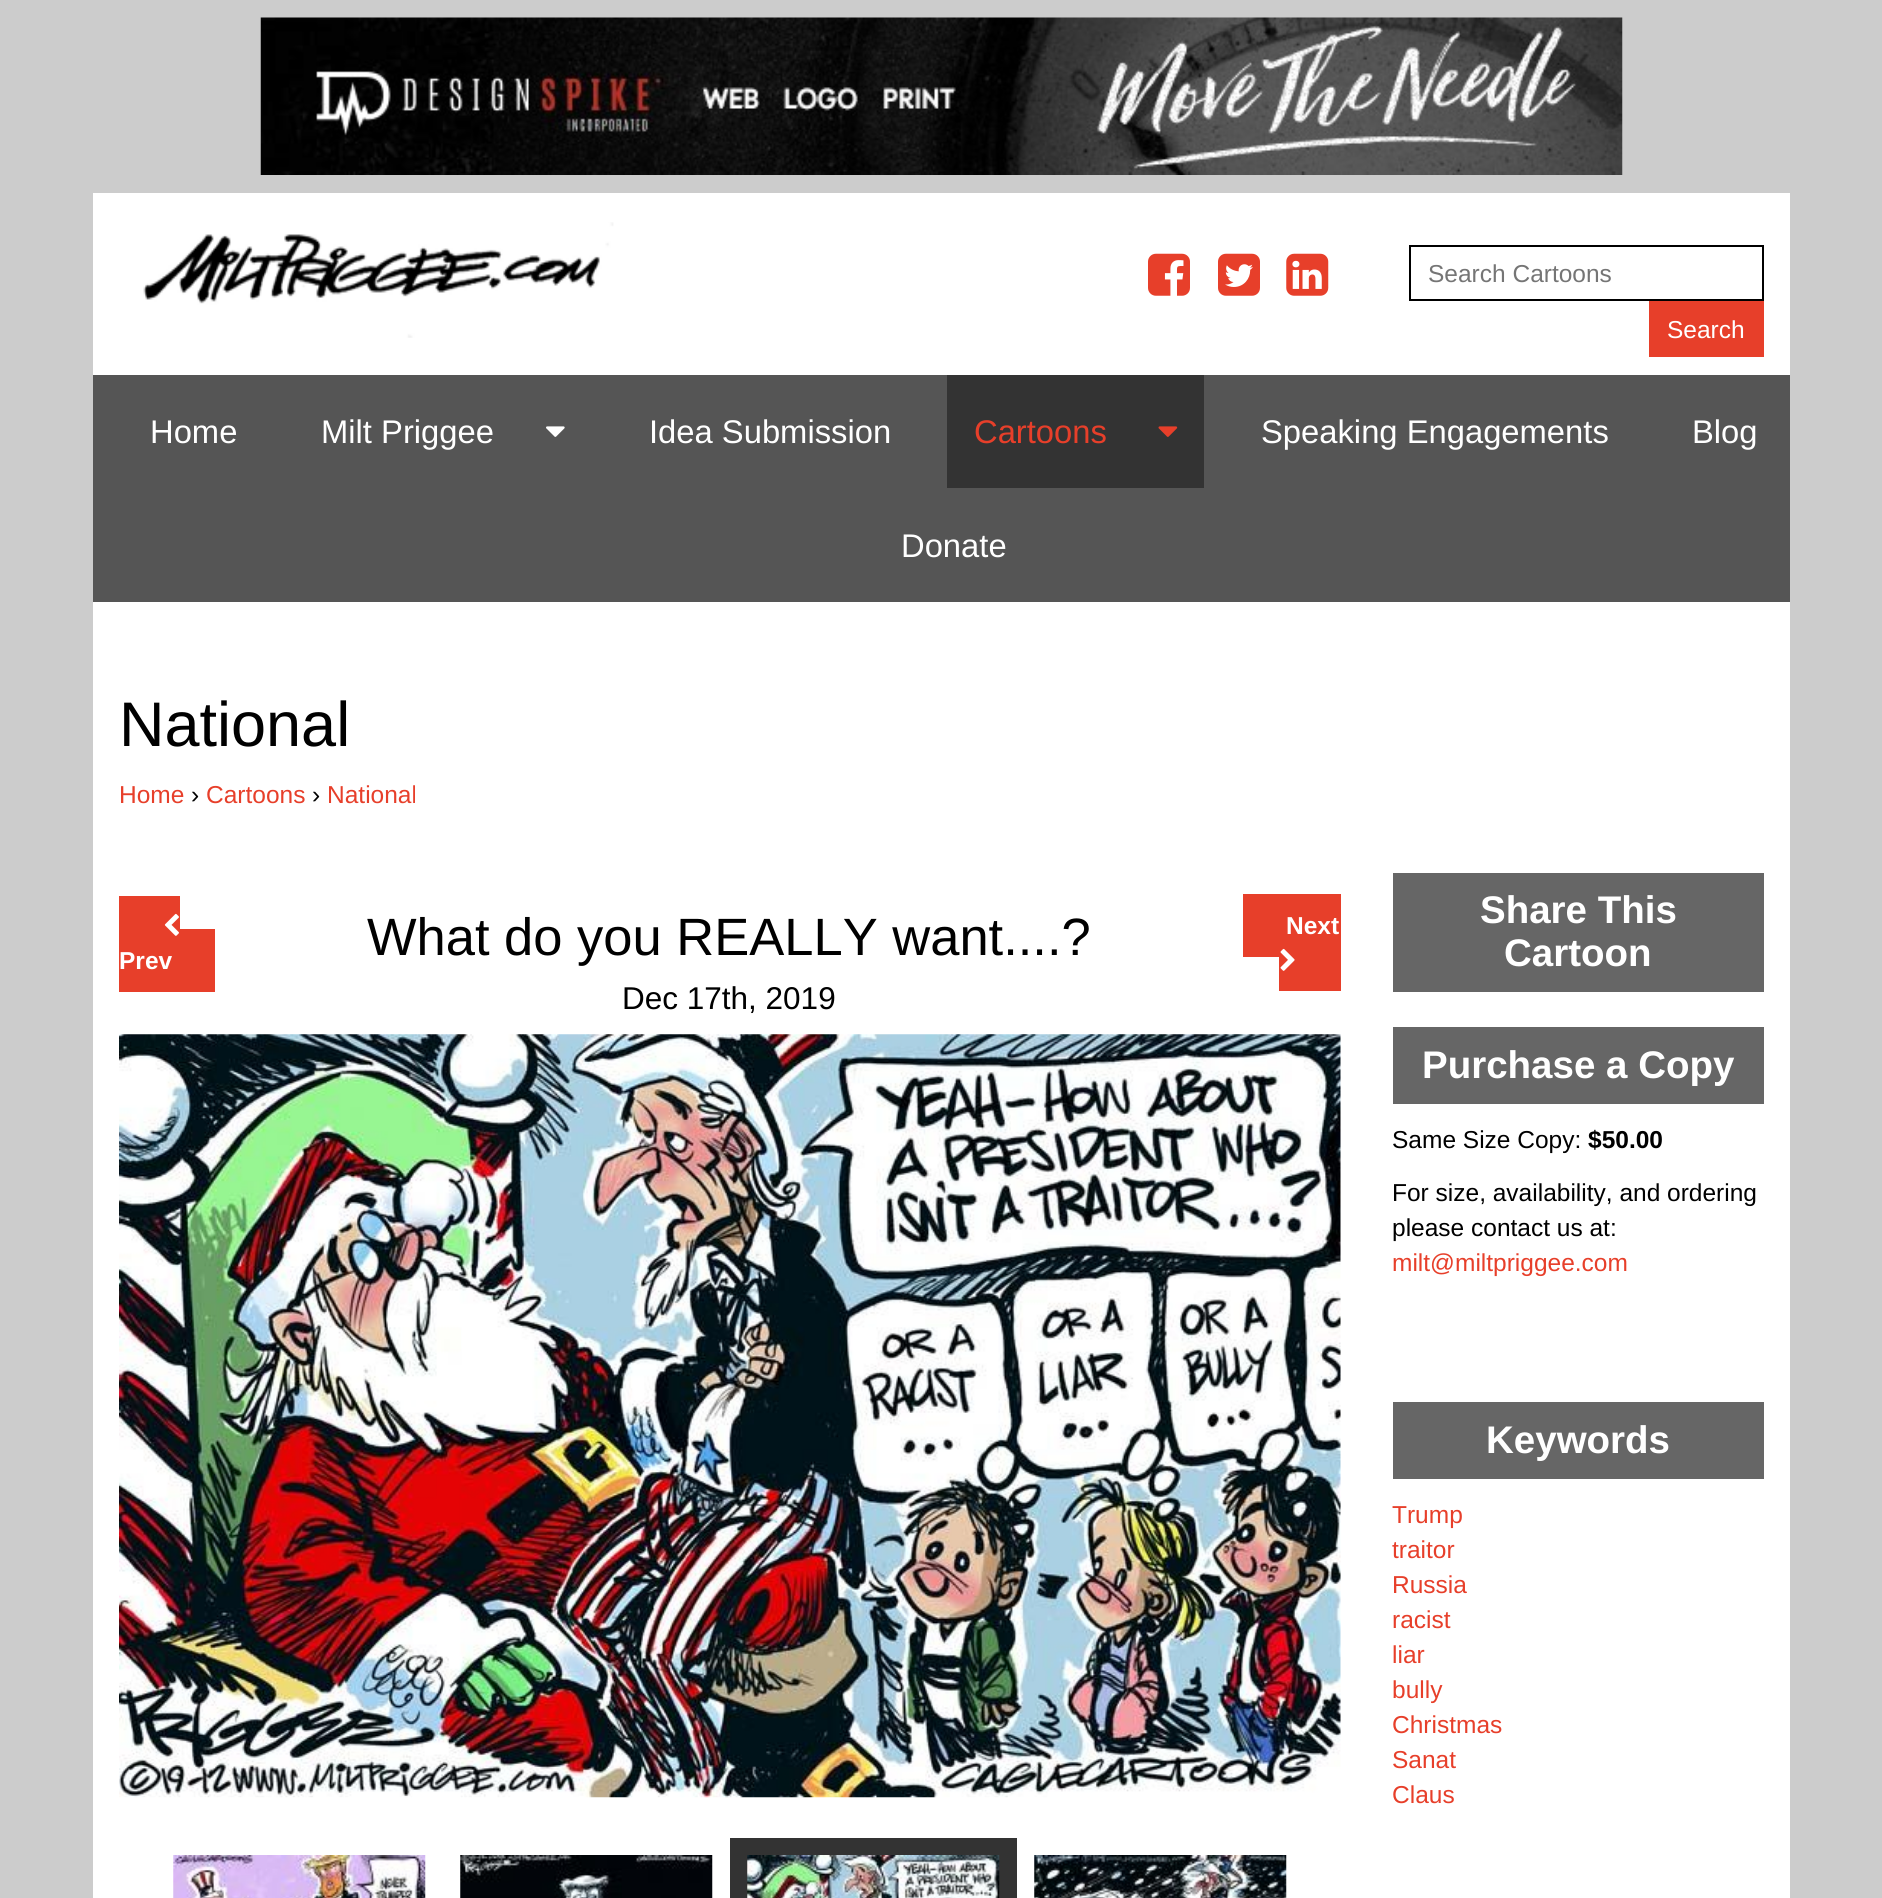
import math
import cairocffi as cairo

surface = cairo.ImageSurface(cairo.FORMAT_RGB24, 1882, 1898)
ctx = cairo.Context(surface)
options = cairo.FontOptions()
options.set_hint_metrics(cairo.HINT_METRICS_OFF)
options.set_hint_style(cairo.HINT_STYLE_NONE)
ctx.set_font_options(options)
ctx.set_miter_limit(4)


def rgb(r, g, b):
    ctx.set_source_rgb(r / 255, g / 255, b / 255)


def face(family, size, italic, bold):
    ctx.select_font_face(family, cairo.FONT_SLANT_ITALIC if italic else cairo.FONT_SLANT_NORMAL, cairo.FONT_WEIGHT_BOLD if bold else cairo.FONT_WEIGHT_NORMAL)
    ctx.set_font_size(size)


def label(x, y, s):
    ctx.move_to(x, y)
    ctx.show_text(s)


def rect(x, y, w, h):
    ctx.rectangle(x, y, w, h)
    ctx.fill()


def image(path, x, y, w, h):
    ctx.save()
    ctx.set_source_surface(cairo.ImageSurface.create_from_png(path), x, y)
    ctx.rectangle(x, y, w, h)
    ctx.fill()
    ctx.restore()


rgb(204, 204, 204)
ctx.paint()
image('image0.png', 260, 17, 1363, 158)
rgb(255, 255, 255)
rect(93, 193, 1697, 1705)
image('image1.png', 143, 222, 471, 116)
image('image2.png', 1148, 253, 42, 43)
image('image3.png', 1218, 253, 42, 43)
image('image4.png', 1286, 253, 43, 43)
ctx.rectangle(1410, 246, 353, 54)
rgb(0, 0, 0)
ctx.stroke()
face('Liberation Sans', 24.5, 0, 0)
rgb(117, 117, 117)
label(1428, 282, 'Search Cartoons')
rgb(231, 63, 42)
rect(1649, 301, 115, 56)
rgb(255, 255, 255)
label(1667, 338, 'Search')
rgb(85, 85, 85)
rect(93, 375, 1697, 227)
face('Liberation Sans', 32.75, 0, 0)
rgb(255, 255, 255)
label(150, 443, 'Home')
label(321, 443, 'Milt Priggee')
image('image5.png', 546, 426, 19, 11)
label(649, 443, 'Idea Submission')
rgb(51, 51, 51)
rect(947, 375, 257, 113)
image('image6.png', 1158, 426, 20, 11)
rgb(231, 63, 42)
label(974, 443, 'Cartoons')
rgb(255, 255, 255)
label(1261, 443, 'Speaking Engagements')
label(1692, 443, 'Blog')
label(901, 557, 'Donate')
face('Liberation Sans', 63, 0, 0)
rgb(0, 0, 0)
label(119, 746, 'National')
face('Liberation Sans', 24.5, 0, 0)
rgb(231, 63, 42)
label(119, 803, 'Home')
rgb(0, 0, 0)
label(191, 803, '›')
rgb(231, 63, 42)
label(206, 803, 'Cartoons')
rgb(0, 0, 0)
label(312, 803, '›')
rgb(231, 63, 42)
label(327, 803, 'National')
face('Liberation Sans', 52.5, 0, 0)
rgb(0, 0, 0)
label(367, 955, 'What do you REALLY want....?')
face('Liberation Sans', 31.5, 0, 0)
label(622, 1009, 'Dec 17th, 2019')
rgb(231, 63, 42)
rect(1243, 894, 98, 63)
rect(1279, 957, 62, 34)
face('Liberation Sans', 24.5, 0, 1)
rgb(255, 255, 255)
label(1286, 934, 'Next')
image('image7.png', 1280, 948, 15, 23)
rgb(231, 63, 42)
rect(119, 896, 61, 33)
rect(119, 929, 96, 63)
image('image8.png', 164, 913, 15, 23)
rgb(255, 255, 255)
label(119, 969, 'Prev')
image('image9.png', 119, 1034, 1222, 764)
image('image10.png', 173, 1855, 253, 43)
image('image11.png', 460, 1855, 253, 43)
rgb(51, 51, 51)
rect(730, 1838, 287, 60)
image('image12.png', 747, 1855, 253, 43)
image('image13.png', 1034, 1855, 253, 43)
rgb(102, 102, 102)
rect(1393, 873, 371, 119)
face('Liberation Sans', 38.5, 0, 1)
rgb(255, 255, 255)
label(1480, 923, 'Share This')
label(1504, 966, 'Cartoon')
rgb(102, 102, 102)
rect(1393, 1027, 371, 77)
rgb(255, 255, 255)
label(1422, 1078, 'Purchase a Copy')
face('Liberation Sans', 24.5, 0, 0)
rgb(0, 0, 0)
label(1392, 1148, 'Same Size Copy:')
face('Liberation Sans', 24.5, 0, 1)
label(1588, 1148, '$50.00')
face('Liberation Sans', 24.5, 0, 0)
label(1392, 1201, 'For size, availability, and ordering')
label(1392, 1236, 'please contact us at:')
rgb(231, 63, 42)
label(1392, 1271, 'milt@miltpriggee.com')
rgb(102, 102, 102)
rect(1393, 1402, 371, 77)
face('Liberation Sans', 38.5, 0, 1)
rgb(255, 255, 255)
label(1486, 1453, 'Keywords')
face('Liberation Sans', 24.5, 0, 0)
rgb(231, 63, 42)
label(1392, 1523, 'Trump')
label(1392, 1558, 'traitor')
label(1392, 1593, 'Russia')
label(1392, 1628, 'racist')
label(1392, 1663, 'liar')
label(1392, 1698, 'bully')
label(1392, 1733, 'Christmas')
label(1392, 1768, 'Sanat')
label(1392, 1803, 'Claus')
surface.write_to_png('render.png')
